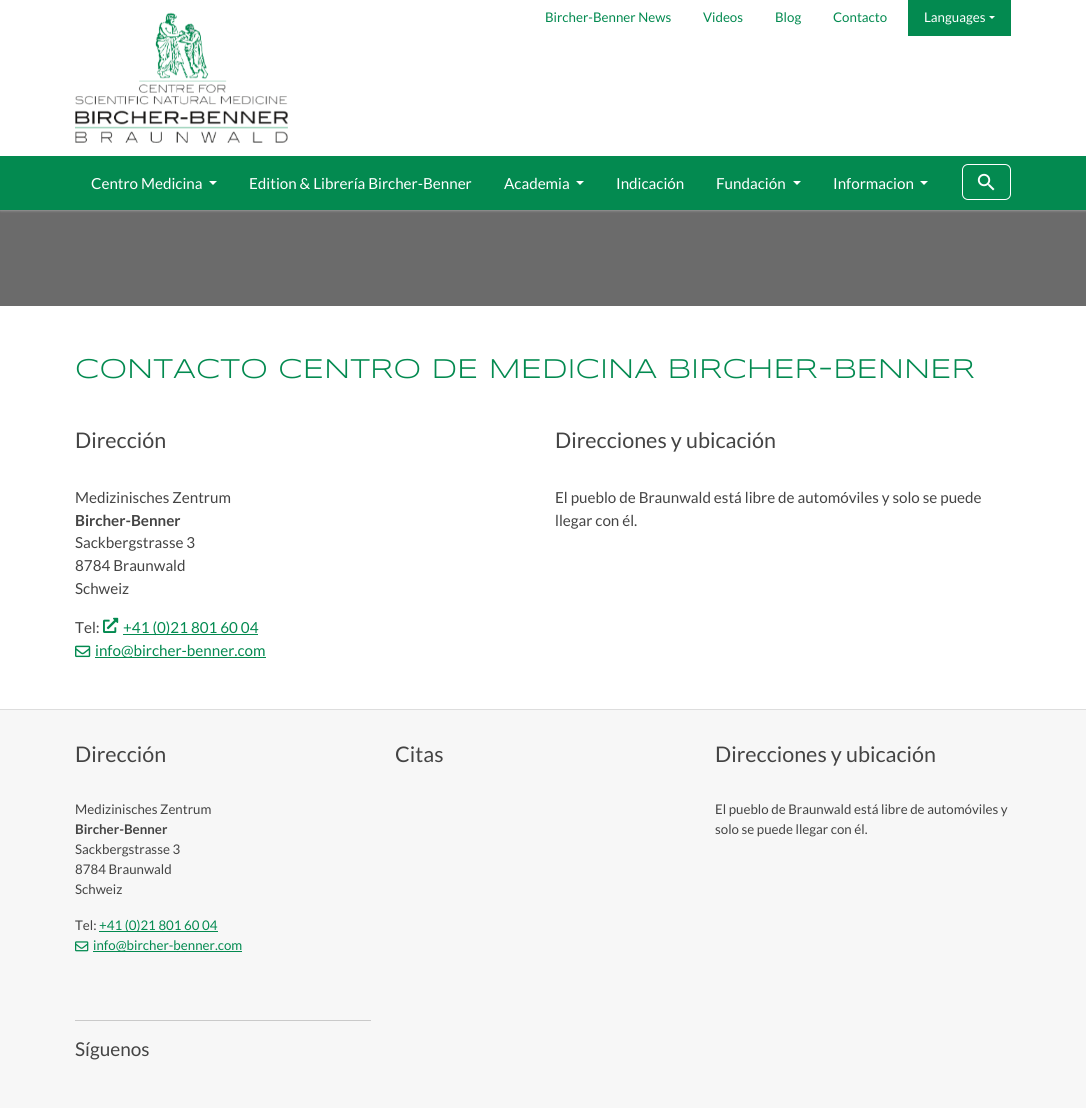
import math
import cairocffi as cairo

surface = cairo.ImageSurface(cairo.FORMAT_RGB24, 1086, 1108)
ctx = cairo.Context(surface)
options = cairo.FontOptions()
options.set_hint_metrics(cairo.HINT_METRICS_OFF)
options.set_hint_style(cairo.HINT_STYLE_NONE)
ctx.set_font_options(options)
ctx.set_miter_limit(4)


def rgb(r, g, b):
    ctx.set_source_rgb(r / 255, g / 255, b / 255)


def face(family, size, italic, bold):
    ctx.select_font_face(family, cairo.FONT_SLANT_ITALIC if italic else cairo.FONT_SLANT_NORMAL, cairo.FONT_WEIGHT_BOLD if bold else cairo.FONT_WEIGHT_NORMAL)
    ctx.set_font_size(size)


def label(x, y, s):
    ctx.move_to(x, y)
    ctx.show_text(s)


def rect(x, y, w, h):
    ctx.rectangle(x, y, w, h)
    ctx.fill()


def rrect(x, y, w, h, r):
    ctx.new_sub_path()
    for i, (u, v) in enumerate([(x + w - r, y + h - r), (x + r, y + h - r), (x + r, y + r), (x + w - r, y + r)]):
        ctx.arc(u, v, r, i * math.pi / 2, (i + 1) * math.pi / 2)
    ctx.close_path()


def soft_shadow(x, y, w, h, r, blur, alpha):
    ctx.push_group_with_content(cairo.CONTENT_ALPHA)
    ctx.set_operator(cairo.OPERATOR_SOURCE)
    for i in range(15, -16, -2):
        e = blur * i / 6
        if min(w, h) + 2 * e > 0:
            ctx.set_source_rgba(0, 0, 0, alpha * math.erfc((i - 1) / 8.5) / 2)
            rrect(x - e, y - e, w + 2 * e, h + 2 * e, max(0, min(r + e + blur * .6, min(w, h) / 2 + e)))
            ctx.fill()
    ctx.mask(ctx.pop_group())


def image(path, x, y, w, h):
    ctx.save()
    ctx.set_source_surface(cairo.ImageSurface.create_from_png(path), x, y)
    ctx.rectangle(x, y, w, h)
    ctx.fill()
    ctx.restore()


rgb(255, 255, 255)
ctx.paint()
rgb(107, 107, 107)
rect(0, 210, 1086, 96)
ctx.save()
ctx.rectangle(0, 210, 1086, 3)
ctx.clip()
rgb(187, 187, 187)
soft_shadow(0, 0, 1086, 210, 0, 1.5, 1)
ctx.restore()
image('image0.png', 75, 12, 213, 131)
face('Lato', 13.3, 0, 0)
rgb(3, 138, 80)
label(545, 22, 'Bircher-Benner News')
label(703, 22, 'Videos')
label(775, 22, 'Blog')
label(833, 22, 'Contacto')
rect(908, 0, 103, 36)
rgb(255, 255, 255)
label(924, 22, 'Languages')
ctx.new_path()
ctx.move_to(989, 16)
ctx.line_to(995, 16)
ctx.line_to(992, 19)
ctx.close_path()
ctx.fill()
rgb(3, 138, 80)
rect(0, 156, 1086, 54)
face('Lato', 15.2, 0, 0)
rgb(255, 255, 255)
label(91, 189, 'Centro Medicina')
ctx.new_path()
ctx.move_to(209, 181)
ctx.line_to(217, 181)
ctx.line_to(213, 185)
ctx.close_path()
ctx.fill()
label(249, 189, 'Edition & Librería Bircher-Benner')
label(504, 189, 'Academia')
ctx.new_path()
ctx.move_to(576, 181)
ctx.line_to(584, 181)
ctx.line_to(580, 185)
ctx.close_path()
ctx.fill()
label(616, 189, 'Indicación')
label(716, 189, 'Fundación')
ctx.new_path()
ctx.move_to(793, 181)
ctx.line_to(801, 181)
ctx.line_to(797, 185)
ctx.close_path()
ctx.fill()
label(833, 189, 'Informacion')
ctx.new_path()
ctx.move_to(920, 181)
ctx.line_to(928, 181)
ctx.line_to(924, 185)
ctx.close_path()
ctx.fill()
rrect(962.5, 164.5, 48, 35, 5.5)
ctx.set_line_width(1)
ctx.stroke()
image('image1.png', 977, 173, 18, 18)
face('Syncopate', 28.05, 0, 0)
rgb(3, 138, 80)
label(75, 378, 'CONTACTO CENTRO DE MEDICINA BIRCHER-BENNER')
face('Lato', 21.5, 0, 0)
rgb(68, 68, 68)
label(75, 448, 'Dirección')
face('Lato', 15.2, 0, 0)
label(75, 503, 'Medizinisches Zentrum')
face('Lato', 15.2, 0, 1)
label(75, 526, 'Bircher-Benner')
face('Lato', 15.2, 0, 0)
label(75, 548, 'Sackbergstrasse 3')
label(75, 571, '8784 Braunwald')
label(75, 594, 'Schweiz')
label(75, 633, 'Tel:')
image('image2.png', 103, 617, 16, 16)
rgb(3, 138, 80)
rect(123, 634, 135, 1)
label(123, 633, '+41 (0)21 801 60 04')
image('image3.png', 75, 645, 16, 13)
rect(95, 657, 171, 1)
label(95, 656, 'info@bircher-benner.com')
face('Lato', 21.5, 0, 0)
rgb(68, 68, 68)
label(555, 448, 'Direcciones y ubicación')
face('Lato', 15.2, 0, 0)
label(555, 503, 'El pueblo de Braunwald está libre de automóviles y solo se puede')
label(555, 526, 'llegar con él.')
rgb(247, 247, 247)
rect(0, 710, 1086, 398)
rgb(221, 221, 221)
rect(0, 709, 1086, 1)
face('Lato', 21.5, 0, 0)
rgb(68, 68, 68)
label(75, 762, 'Dirección')
face('Lato', 13.3, 0, 0)
label(75, 814, 'Medizinisches Zentrum')
face('Lato', 13.3, 0, 1)
label(75, 834, 'Bircher-Benner')
face('Lato', 13.3, 0, 0)
label(75, 854, 'Sackbergstrasse 3')
label(75, 874, '8784 Braunwald')
label(75, 894, 'Schweiz')
label(75, 930, 'Tel:')
rgb(3, 138, 80)
rect(99, 931, 119, 1)
label(99, 930, '+41 (0)21 801 60 04')
image('image4.png', 75, 941, 14, 11)
rect(93, 951, 149, 1)
label(93, 950, 'info@bircher-benner.com')
rgb(202, 202, 202)
rect(75, 1020, 296, 1)
face('Lato', 19, 0, 0)
rgb(68, 68, 68)
label(75, 1056, 'Síguenos')
face('Lato', 21.5, 0, 0)
label(395, 762, 'Citas')
label(715, 762, 'Direcciones y ubicación')
face('Lato', 13.3, 0, 0)
label(715, 814, 'El pueblo de Braunwald está libre de automóviles y')
label(715, 834, 'solo se puede llegar con él.')
surface.write_to_png('render.png')
